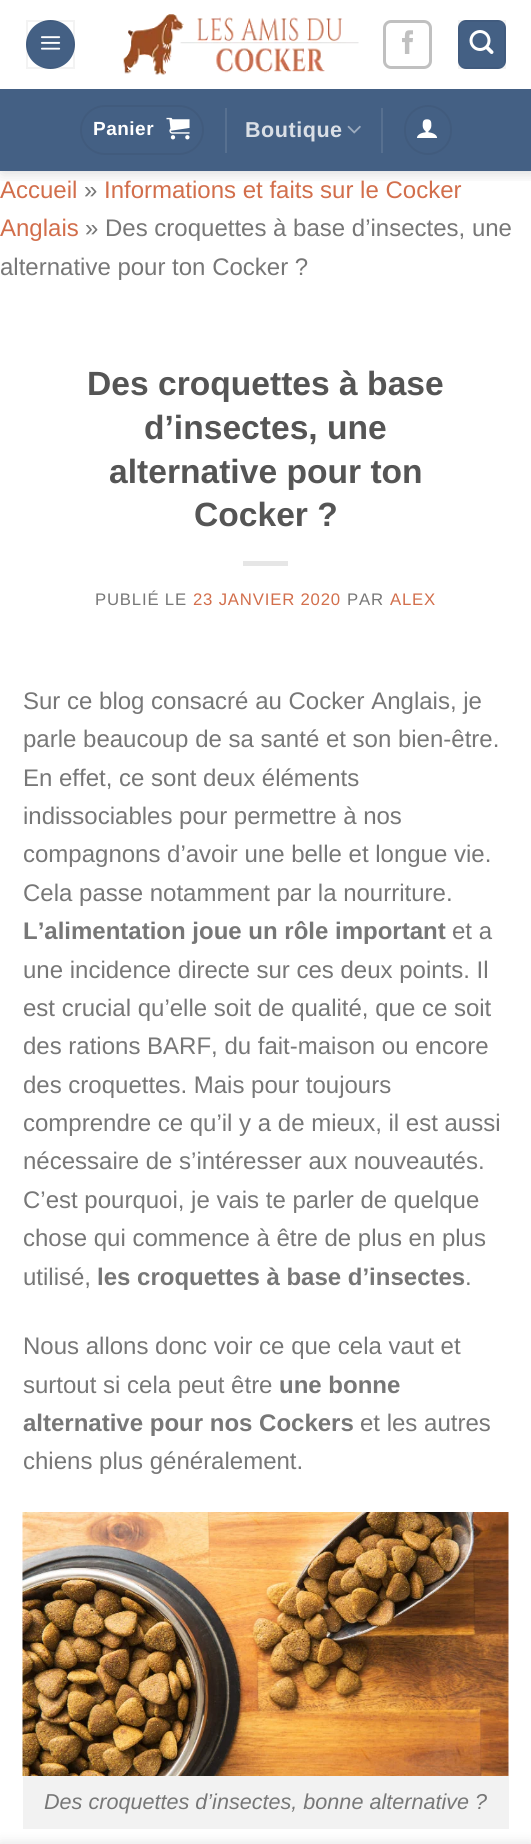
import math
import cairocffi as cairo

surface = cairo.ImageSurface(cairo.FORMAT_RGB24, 531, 1844)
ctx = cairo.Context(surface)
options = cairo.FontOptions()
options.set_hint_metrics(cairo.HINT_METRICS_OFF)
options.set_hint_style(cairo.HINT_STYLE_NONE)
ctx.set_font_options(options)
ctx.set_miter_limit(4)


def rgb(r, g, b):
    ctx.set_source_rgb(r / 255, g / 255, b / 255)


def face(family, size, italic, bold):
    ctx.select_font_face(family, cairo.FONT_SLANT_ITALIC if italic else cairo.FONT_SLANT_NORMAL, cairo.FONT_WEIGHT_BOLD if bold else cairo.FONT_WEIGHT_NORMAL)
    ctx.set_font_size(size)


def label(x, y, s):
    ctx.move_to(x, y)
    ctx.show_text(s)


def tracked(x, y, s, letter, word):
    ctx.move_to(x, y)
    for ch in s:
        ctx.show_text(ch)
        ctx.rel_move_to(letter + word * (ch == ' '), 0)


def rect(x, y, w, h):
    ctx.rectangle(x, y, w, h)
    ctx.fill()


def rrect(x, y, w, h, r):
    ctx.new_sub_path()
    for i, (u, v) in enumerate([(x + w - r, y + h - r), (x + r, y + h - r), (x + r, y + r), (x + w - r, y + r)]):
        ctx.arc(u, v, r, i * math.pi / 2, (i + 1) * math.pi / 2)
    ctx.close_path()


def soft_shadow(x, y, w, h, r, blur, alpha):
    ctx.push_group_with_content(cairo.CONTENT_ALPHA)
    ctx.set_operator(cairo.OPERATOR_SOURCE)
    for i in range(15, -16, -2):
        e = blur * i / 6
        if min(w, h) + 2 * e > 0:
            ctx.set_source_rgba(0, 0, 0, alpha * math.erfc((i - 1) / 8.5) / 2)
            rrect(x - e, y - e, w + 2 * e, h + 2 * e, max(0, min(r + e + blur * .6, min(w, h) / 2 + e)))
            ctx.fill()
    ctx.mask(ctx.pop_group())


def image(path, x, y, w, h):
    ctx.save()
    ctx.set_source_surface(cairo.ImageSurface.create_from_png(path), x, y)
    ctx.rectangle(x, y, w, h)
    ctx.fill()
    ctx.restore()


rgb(255, 255, 255)
ctx.paint()
ctx.save()
ctx.rectangle(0, 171, 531, 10)
ctx.clip()
rgb(0, 0, 0)
soft_shadow(2, 2, 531, 171, 0, 7.5, 0.15)
ctx.restore()
rgb(68, 96, 132)
ctx.arc(50.5, 44.5, 24.5, 0, 2 * math.pi)
ctx.fill()
ctx.rectangle(27, 21, 47, 47)
ctx.set_source_rgba(0, 0, 0, 0.05)
ctx.stroke()
image('image0.png', 40, 36, 21, 14)
image('image1.png', 123, 14, 236, 61)
rrect(384.5, 21.5, 46, 46, 6.5)
rgb(192, 192, 192)
ctx.set_line_width(3)
ctx.stroke()
image('image2.png', 402, 30, 11, 24)
rgb(68, 96, 132)
rrect(458, 20, 48, 49, 8)
ctx.fill()
ctx.rectangle(459, 21, 46, 47)
ctx.set_source_rgba(0, 0, 0, 0.05)
ctx.set_line_width(2)
ctx.stroke()
image('image3.png', 469, 30, 25, 24)
rgb(68, 96, 132)
rect(0, 89, 531, 82)
rrect(81, 106, 122, 48, 24)
rgb(65, 91, 125)
ctx.stroke()
face('Liberation Sans', 19, 0, 1)
rgb(255, 255, 255)
tracked(93, 135, 'Panier', 0.5, 0)
image('image4.png', 166, 117, 24, 23)
rgb(87, 112, 144)
rect(225, 108, 2, 45)
face('Liberation Sans', 21.6, 0, 1)
rgb(218, 223, 230)
tracked(245, 137, 'Boutique', 0.5, 0)
image('image5.png', 347, 125, 14, 9)
rgb(87, 112, 144)
rect(381, 108, 2, 45)
rrect(405, 106, 46, 48, 23)
rgb(65, 91, 125)
ctx.stroke()
image('image6.png', 417, 119, 21, 19)
face('Liberation Sans', 24, 0, 0)
rgb(210, 110, 75)
label(0, 198, 'Accueil')
rgb(119, 119, 119)
label(84, 198, '»')
rgb(210, 110, 75)
label(104, 198, 'Informations et faits sur le Cocker')
label(0, 236, 'Anglais')
rgb(119, 119, 119)
label(85, 236, '» Des croquettes à base d’insectes, une')
label(0, 275, 'alternative pour ton Cocker ?')
face('Liberation Sans', 33.6, 0, 1)
rgb(85, 85, 85)
label(87, 395, 'Des croquettes à base')
label(144, 439, 'd’insectes, une')
label(109, 483, 'alternative pour ton')
label(194, 526, 'Cocker ?')
rgb(230, 230, 230)
rect(243, 561, 45, 5)
face('Liberation Sans', 16.75, 0, 0)
rgb(119, 119, 119)
tracked(95, 605, 'PUBLIÉ LE', 0.8, 0)
rgb(210, 110, 75)
tracked(193, 605, '23 JANVIER 2020', 0.8, 0)
rgb(119, 119, 119)
tracked(347, 605, 'PAR', 0.8, 0)
rgb(210, 110, 75)
tracked(390, 605, 'ALEX', 0.8, 0)
face('Liberation Sans', 24, 0, 0)
rgb(119, 119, 119)
label(23, 709, 'Sur ce blog consacré au Cocker Anglais, je')
label(23, 747, 'parle beaucoup de sa santé et son bien-être.')
label(23, 786, 'En effet, ce sont deux éléments')
label(23, 824, 'indissociables pour permettre à nos')
label(23, 862, 'compagnons d’avoir une belle et longue vie.')
label(23, 901, 'Cela passe notamment par la nourriture.')
face('Liberation Sans', 24, 0, 1)
label(23, 939, 'L’alimentation joue un rôle important')
face('Liberation Sans', 24, 0, 0)
label(452, 939, 'et a')
label(23, 978, 'une incidence directe sur ces deux points. Il')
label(23, 1016, 'est crucial qu’elle soit de qualité, que ce soit')
label(23, 1054, 'des rations BARF, du fait-maison ou encore')
label(23, 1093, 'des croquettes. Mais pour toujours')
label(23, 1131, 'comprendre ce qu’il y a de mieux, il est aussi')
label(23, 1169, 'nécessaire de s’intéresser aux nouveautés.')
label(23, 1208, 'C’est pourquoi, je vais te parler de quelque')
label(23, 1246, 'chose qui commence à être de plus en plus')
label(23, 1285, 'utilisé,')
face('Liberation Sans', 24, 0, 1)
label(97, 1285, 'les croquettes à base d’insectes')
face('Liberation Sans', 24, 0, 0)
label(465, 1285, '.')
label(23, 1354, 'Nous allons donc voir ce que cela vaut et')
label(23, 1393, 'surtout si cela peut être')
face('Liberation Sans', 24, 0, 1)
label(279, 1393, 'une bonne')
label(23, 1431, 'alternative pour nos Cockers')
face('Liberation Sans', 24, 0, 0)
label(360, 1431, 'et les autres')
label(23, 1469, 'chiens plus généralement.')
image('image7.png', 22, 1512, 487, 264)
rgb(242, 242, 242)
rect(23, 1776, 486, 53)
face('Liberation Sans', 21.6, 1, 0)
rgb(119, 119, 119)
label(44, 1809, 'Des croquettes d’insectes, bonne alternative ?')
rgb(0, 0, 0)
soft_shadow(0, 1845, 531, 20, 0, 7, 0.14)
surface.write_to_png('render.png')
